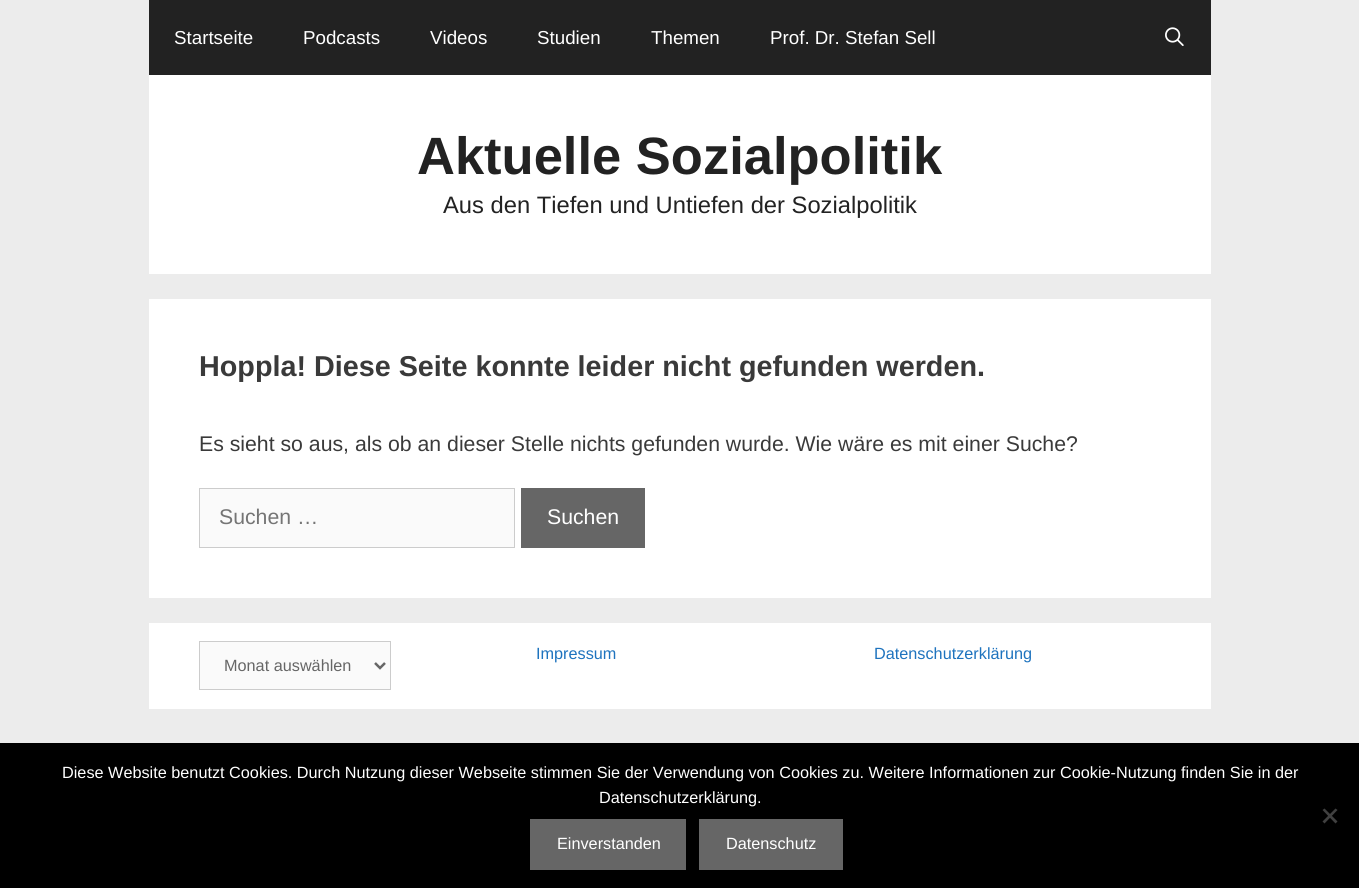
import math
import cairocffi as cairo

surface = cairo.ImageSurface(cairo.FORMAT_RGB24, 1359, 888)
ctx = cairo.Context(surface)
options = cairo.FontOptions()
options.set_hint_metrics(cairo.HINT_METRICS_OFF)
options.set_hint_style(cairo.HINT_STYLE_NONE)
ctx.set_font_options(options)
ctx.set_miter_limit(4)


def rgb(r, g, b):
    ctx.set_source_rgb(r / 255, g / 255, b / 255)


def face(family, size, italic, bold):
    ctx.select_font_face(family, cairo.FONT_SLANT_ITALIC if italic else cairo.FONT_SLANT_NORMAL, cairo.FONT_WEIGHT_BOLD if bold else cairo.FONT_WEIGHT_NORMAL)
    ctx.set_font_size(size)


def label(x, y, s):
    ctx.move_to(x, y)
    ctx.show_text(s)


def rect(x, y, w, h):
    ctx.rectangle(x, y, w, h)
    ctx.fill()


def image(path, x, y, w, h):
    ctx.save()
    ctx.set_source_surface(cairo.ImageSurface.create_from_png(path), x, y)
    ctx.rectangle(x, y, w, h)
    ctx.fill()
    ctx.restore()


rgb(236, 236, 236)
ctx.paint()
rgb(34, 34, 34)
rect(149, 0, 1062, 75)
face('Liberation Sans', 18.75, 0, 0)
rgb(255, 255, 255)
label(174, 44, 'Startseite')
label(303, 44, 'Podcasts')
label(430, 44, 'Videos')
label(537, 44, 'Studien')
label(651, 44, 'Themen')
label(770, 44, 'Prof. Dr. Stefan Sell')
image('image0.png', 1165, 27, 19, 19)
rect(149, 75, 1062, 199)
face('Liberation Sans', 52.5, 0, 1)
rgb(34, 34, 34)
label(417, 174, 'Aktuelle Sozialpolitik')
face('Liberation Sans', 23.75, 0, 0)
label(443, 213, 'Aus den Tiefen und Untiefen der Sozialpolitik')
rgb(255, 255, 255)
rect(149, 299, 1062, 299)
face('Liberation Sans', 28.75, 0, 1)
rgb(58, 58, 58)
label(199, 376, 'Hoppla! Diese Seite konnte leider nicht gefunden werden.')
face('Liberation Sans', 21.25, 0, 0)
label(199, 451, 'Es sieht so aus, als ob an dieser Stelle nichts gefunden wurde. Wie wäre es mit einer Suche?')
rgb(250, 250, 250)
ctx.rectangle(199.5, 488.5, 315, 59)
ctx.fill_preserve()
rgb(204, 204, 204)
ctx.set_line_width(1)
ctx.stroke()
rgb(117, 117, 117)
label(219, 524, 'Suchen …')
rgb(102, 102, 102)
rect(521, 488, 124, 60)
rgb(255, 255, 255)
label(547, 524, 'Suchen')
rect(149, 623, 1062, 86)
face('Liberation Sans', 16.25, 0, 0)
rgb(30, 115, 190)
label(536, 659, 'Impressum')
label(874, 659, 'Datenschutzerklärung')
rgb(250, 250, 250)
ctx.rectangle(199.5, 641.5, 191, 48)
ctx.fill_preserve()
rgb(204, 204, 204)
ctx.stroke()
ctx.new_path()
ctx.move_to(375, 663)
ctx.line_to(380, 668)
ctx.line_to(385, 663)
rgb(102, 102, 102)
ctx.set_line_width(2.5)
ctx.stroke()
label(224, 671, 'Monat auswählen')
rgb(0, 0, 0)
rect(0, 743, 1359, 145)
rgb(255, 255, 255)
label(62, 778, 'Diese Website benutzt Cookies. Durch Nutzung dieser Webseite stimmen Sie der Verwendung von Cookies zu. Weitere Informationen zur Cookie-Nutzung finden Sie in der')
label(599, 803, 'Datenschutzerklärung.')
rgb(64, 64, 64)
ctx.new_path()
ctx.move_to(1335.5, 808.5)
ctx.line_to(1337.5, 810)
ctx.line_to(1324.5, 823.5)
ctx.line_to(1322.5, 821.5)
ctx.close_path()
ctx.fill()
ctx.new_path()
ctx.move_to(1322.5, 810)
ctx.line_to(1324.5, 808.5)
ctx.line_to(1337.5, 821.5)
ctx.line_to(1335.5, 823.5)
ctx.close_path()
ctx.fill()
rgb(102, 102, 102)
rect(530, 819, 156, 51)
rgb(255, 255, 255)
label(557, 849, 'Einverstanden')
rgb(102, 102, 102)
rect(699, 819, 144, 51)
rgb(255, 255, 255)
label(726, 849, 'Datenschutz')
surface.write_to_png('render.png')
